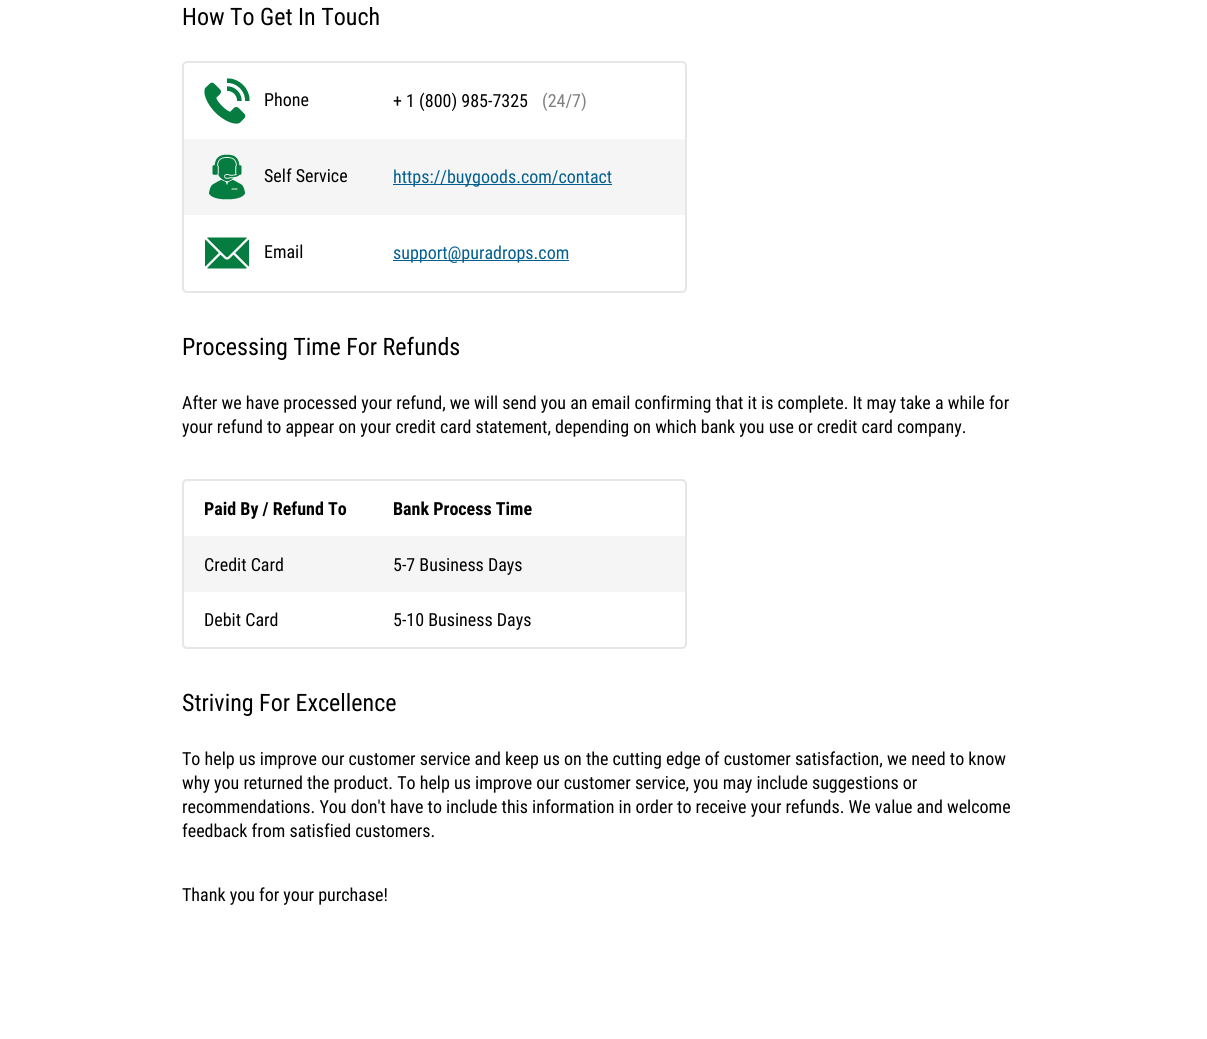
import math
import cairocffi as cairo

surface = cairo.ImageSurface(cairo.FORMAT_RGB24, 1207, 1039)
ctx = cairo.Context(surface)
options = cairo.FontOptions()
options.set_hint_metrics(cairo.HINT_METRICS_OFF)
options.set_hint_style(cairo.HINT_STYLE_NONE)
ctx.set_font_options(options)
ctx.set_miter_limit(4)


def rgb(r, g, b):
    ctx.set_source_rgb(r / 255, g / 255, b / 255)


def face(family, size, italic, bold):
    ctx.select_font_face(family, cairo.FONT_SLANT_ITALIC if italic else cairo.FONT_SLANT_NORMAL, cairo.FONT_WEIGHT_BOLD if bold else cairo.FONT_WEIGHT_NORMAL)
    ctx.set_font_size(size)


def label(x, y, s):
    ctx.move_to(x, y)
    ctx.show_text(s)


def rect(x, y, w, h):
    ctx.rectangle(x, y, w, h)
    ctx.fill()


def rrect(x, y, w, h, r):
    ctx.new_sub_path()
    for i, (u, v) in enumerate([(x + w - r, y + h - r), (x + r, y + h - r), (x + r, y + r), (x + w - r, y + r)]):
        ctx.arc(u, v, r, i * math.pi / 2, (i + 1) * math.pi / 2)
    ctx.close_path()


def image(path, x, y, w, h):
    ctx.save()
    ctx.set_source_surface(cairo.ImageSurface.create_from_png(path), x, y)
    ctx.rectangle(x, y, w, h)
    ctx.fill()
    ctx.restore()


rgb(255, 255, 255)
ctx.paint()
face('Roboto Condensed', 24, 0, 0)
rgb(0, 0, 0)
label(182, 25, 'How To Get In Touch')
rrect(183, 62, 503, 230, 4)
rgb(230, 230, 230)
ctx.stroke()
image('image0.png', 204, 78, 46, 46)
face('Roboto Condensed', 18, 0, 0)
rgb(0, 0, 0)
label(264, 106, 'Phone')
label(393, 107, '+ 1 (800) 985-7325')
rgb(127, 127, 127)
label(542, 107, '(24/7)')
rgb(245, 245, 245)
rect(184, 139, 501, 76)
image('image1.png', 209, 154, 36, 46)
rgb(0, 0, 0)
label(264, 182, 'Self Service')
rgb(3, 95, 143)
rect(393, 184, 219, 1)
label(393, 183, 'https://buygoods.com/contact')
image('image2.png', 205, 237, 44, 32)
rgb(0, 0, 0)
label(264, 258, 'Email')
rgb(3, 95, 143)
rect(393, 260, 176, 1)
label(393, 259, 'support@puradrops.com')
face('Roboto Condensed', 24, 0, 0)
rgb(0, 0, 0)
label(182, 355, 'Processing Time For Refunds')
face('Roboto Condensed', 18, 0, 0)
label(182, 409, 'After we have processed your refund, we will send you an email confirming that it is complete. It may take a while for')
label(182, 433, 'your refund to appear on your credit card statement, depending on which bank you use or credit card company.')
rrect(183, 480, 503, 168, 4)
rgb(230, 230, 230)
ctx.stroke()
face('Roboto Condensed', 18, 0, 1)
rgb(0, 0, 0)
label(204, 515, 'Paid By / Refund To')
label(393, 515, 'Bank Process Time')
rgb(245, 245, 245)
rect(184, 536, 501, 56)
face('Roboto Condensed', 18, 0, 0)
rgb(0, 0, 0)
label(204, 571, 'Credit Card')
label(393, 571, '5-7 Business Days')
label(204, 626, 'Debit Card')
label(393, 626, '5-10 Business Days')
face('Roboto Condensed', 24, 0, 0)
label(182, 711, 'Striving For Excellence')
face('Roboto Condensed', 18, 0, 0)
label(182, 765, 'To help us improve our customer service and keep us on the cutting edge of customer satisfaction, we need to know')
label(182, 789, 'why you returned the product. To help us improve our customer service, you may include suggestions or')
label(182, 813, 'recommendations. You don\'t have to include this information in order to receive your refunds. We value and welcome')
label(182, 837, 'feedback from satisfied customers.')
label(182, 901, 'Thank you for your purchase!')
surface.write_to_png('render.png')
